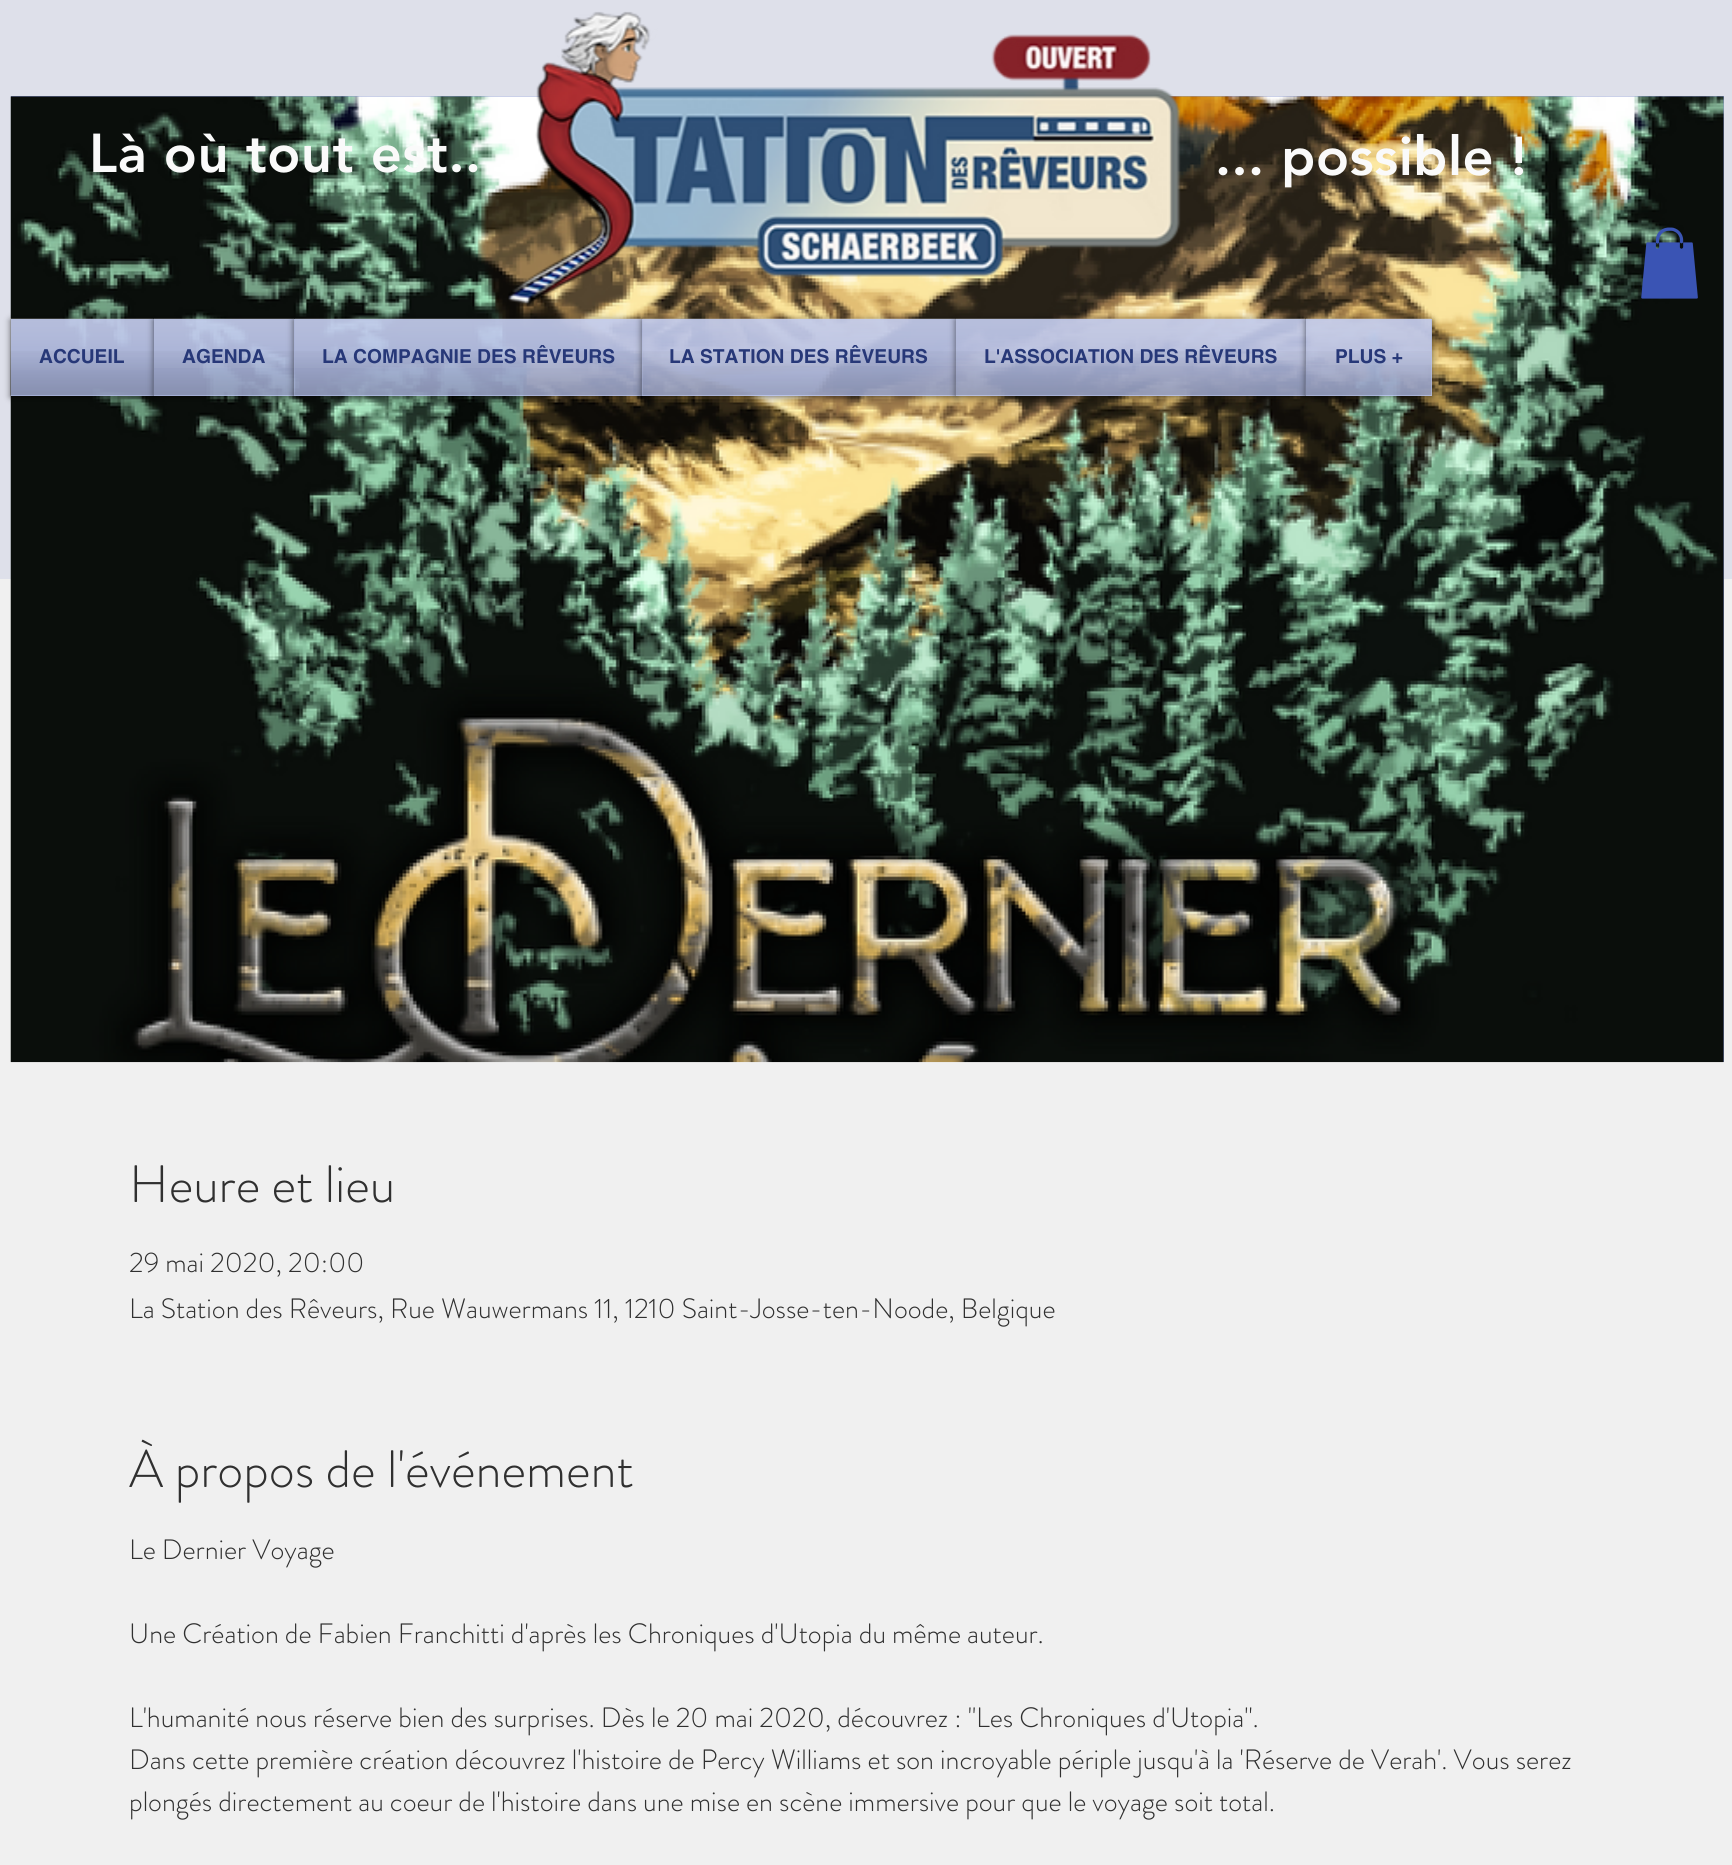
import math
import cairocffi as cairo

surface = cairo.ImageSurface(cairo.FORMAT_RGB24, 1732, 1865)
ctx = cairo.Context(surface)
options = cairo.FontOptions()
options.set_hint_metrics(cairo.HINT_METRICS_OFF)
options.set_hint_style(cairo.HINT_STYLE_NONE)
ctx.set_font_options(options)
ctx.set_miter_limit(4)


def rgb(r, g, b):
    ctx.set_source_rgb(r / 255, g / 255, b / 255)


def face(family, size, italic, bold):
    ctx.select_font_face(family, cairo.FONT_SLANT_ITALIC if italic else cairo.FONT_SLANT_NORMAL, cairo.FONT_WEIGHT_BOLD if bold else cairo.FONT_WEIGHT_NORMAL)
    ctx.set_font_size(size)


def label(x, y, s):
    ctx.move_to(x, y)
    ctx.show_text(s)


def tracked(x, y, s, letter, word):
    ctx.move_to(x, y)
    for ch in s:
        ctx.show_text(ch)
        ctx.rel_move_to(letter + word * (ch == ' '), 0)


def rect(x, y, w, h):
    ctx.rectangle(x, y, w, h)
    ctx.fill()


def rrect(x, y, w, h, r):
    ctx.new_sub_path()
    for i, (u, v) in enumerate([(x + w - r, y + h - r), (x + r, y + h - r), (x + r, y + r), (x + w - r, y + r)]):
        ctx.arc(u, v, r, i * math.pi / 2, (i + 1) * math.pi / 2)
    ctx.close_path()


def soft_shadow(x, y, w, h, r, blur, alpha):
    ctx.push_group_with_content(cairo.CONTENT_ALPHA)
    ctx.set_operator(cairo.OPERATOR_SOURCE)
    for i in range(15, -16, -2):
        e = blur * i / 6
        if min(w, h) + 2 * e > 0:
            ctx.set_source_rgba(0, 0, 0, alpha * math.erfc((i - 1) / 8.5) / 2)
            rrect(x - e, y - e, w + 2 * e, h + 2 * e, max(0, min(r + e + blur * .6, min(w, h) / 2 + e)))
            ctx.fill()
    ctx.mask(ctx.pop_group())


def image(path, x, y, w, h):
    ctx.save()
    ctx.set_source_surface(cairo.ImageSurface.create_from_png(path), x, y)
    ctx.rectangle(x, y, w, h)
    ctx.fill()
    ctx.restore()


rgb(240, 240, 240)
ctx.paint()
rgb(222, 224, 234)
rect(0, 0, 1732, 579)
rgb(136, 150, 205)
rect(11, 96, 1713, 966)
image('image14.png', 10, 96, 1714, 967)
face('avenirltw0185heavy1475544 Black', 54.25, 0, 0)
rgb(250, 250, 250)
tracked(89, 172, 'Là où tout est..', 0.5, 0)
image('image0.png', 508, 11, 673, 294)
tracked(1215, 175, '... possible !', 0.5, 0)
image('image1.png', 1641, 227, 57, 72)
ctx.save()
ctx.set_fill_rule(cairo.FILL_RULE_EVEN_ODD)
ctx.new_path()
ctx.move_to(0, 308)
ctx.line_to(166, 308)
ctx.line_to(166, 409)
ctx.line_to(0, 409)
ctx.close_path()
ctx.move_to(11, 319)
ctx.line_to(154, 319)
ctx.line_to(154, 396)
ctx.line_to(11, 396)
ctx.close_path()
ctx.clip()
rgb(0, 0, 0)
soft_shadow(11, 320, 143, 77, 0, 3.5, 0.6)
ctx.restore()
ctx.set_source_rgba(0.698, 0.741, 0.902, 0.91)
rect(11, 319, 143, 77)
image('image2.png', 10, 318, 145, 52)
image('image3.png', 10, 351, 144, 44)
face('helvetica', 19.25, 0, 1)
rgb(39, 56, 120)
label(39, 363, 'ACCUEIL')
ctx.save()
ctx.set_fill_rule(cairo.FILL_RULE_EVEN_ODD)
ctx.new_path()
ctx.move_to(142, 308)
ctx.line_to(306, 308)
ctx.line_to(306, 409)
ctx.line_to(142, 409)
ctx.close_path()
ctx.move_to(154, 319)
ctx.line_to(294, 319)
ctx.line_to(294, 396)
ctx.line_to(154, 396)
ctx.close_path()
ctx.clip()
rgb(0, 0, 0)
soft_shadow(154, 320, 140, 77, 0, 3.5, 0.6)
ctx.restore()
ctx.set_source_rgba(0.698, 0.741, 0.902, 0.91)
rect(154, 319, 140, 77)
image('image4.png', 154, 318, 140, 50)
image('image5.png', 154, 351, 140, 44)
rgb(39, 56, 120)
label(182, 363, 'AGENDA')
ctx.save()
ctx.set_fill_rule(cairo.FILL_RULE_EVEN_ODD)
ctx.new_path()
ctx.move_to(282, 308)
ctx.line_to(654, 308)
ctx.line_to(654, 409)
ctx.line_to(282, 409)
ctx.close_path()
ctx.move_to(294, 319)
ctx.line_to(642, 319)
ctx.line_to(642, 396)
ctx.line_to(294, 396)
ctx.close_path()
ctx.clip()
rgb(0, 0, 0)
soft_shadow(294, 320, 348, 77, 0, 3.5, 0.6)
ctx.restore()
ctx.set_source_rgba(0.698, 0.741, 0.902, 0.91)
rect(294, 319, 348, 77)
image('image6.png', 293, 318, 350, 50)
image('image7.png', 294, 351, 348, 44)
rgb(39, 56, 120)
label(322, 363, 'LA COMPAGNIE DES RÊVEURS')
ctx.save()
ctx.set_fill_rule(cairo.FILL_RULE_EVEN_ODD)
ctx.new_path()
ctx.move_to(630, 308)
ctx.line_to(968, 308)
ctx.line_to(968, 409)
ctx.line_to(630, 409)
ctx.close_path()
ctx.move_to(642, 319)
ctx.line_to(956, 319)
ctx.line_to(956, 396)
ctx.line_to(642, 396)
ctx.close_path()
ctx.clip()
rgb(0, 0, 0)
soft_shadow(642, 320, 314, 77, 0, 3.5, 0.6)
ctx.restore()
ctx.set_source_rgba(0.698, 0.741, 0.902, 0.91)
rect(642, 319, 314, 77)
image('image8.png', 642, 318, 314, 48)
image('image9.png', 642, 351, 314, 44)
rgb(39, 56, 120)
label(669, 363, 'LA STATION DES RÊVEURS')
ctx.save()
ctx.set_fill_rule(cairo.FILL_RULE_EVEN_ODD)
ctx.new_path()
ctx.move_to(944, 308)
ctx.line_to(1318, 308)
ctx.line_to(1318, 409)
ctx.line_to(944, 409)
ctx.close_path()
ctx.move_to(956, 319)
ctx.line_to(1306, 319)
ctx.line_to(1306, 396)
ctx.line_to(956, 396)
ctx.close_path()
ctx.clip()
rgb(0, 0, 0)
soft_shadow(956, 320, 350, 77, 0, 3.5, 0.6)
ctx.restore()
ctx.set_source_rgba(0.698, 0.741, 0.902, 0.91)
rect(956, 319, 350, 77)
image('image10.png', 955, 318, 350, 48)
image('image11.png', 955, 351, 350, 44)
rgb(39, 56, 120)
label(984, 363, 'L\'ASSOCIATION DES RÊVEURS')
ctx.save()
ctx.set_fill_rule(cairo.FILL_RULE_EVEN_ODD)
ctx.new_path()
ctx.move_to(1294, 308)
ctx.line_to(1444, 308)
ctx.line_to(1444, 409)
ctx.line_to(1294, 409)
ctx.close_path()
ctx.move_to(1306, 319)
ctx.line_to(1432, 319)
ctx.line_to(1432, 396)
ctx.line_to(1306, 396)
ctx.close_path()
ctx.clip()
rgb(0, 0, 0)
soft_shadow(1306, 320, 126, 77, 0, 3.5, 0.6)
ctx.restore()
ctx.set_source_rgba(0.698, 0.741, 0.902, 0.91)
rect(1306, 319, 126, 77)
image('image12.png', 1305, 318, 127, 47)
image('image13.png', 1305, 351, 127, 44)
rgb(39, 56, 120)
label(1335, 363, 'PLUS +')
face('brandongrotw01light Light', 52.5, 0, 0)
rgb(48, 48, 48)
label(129, 1202, 'Heure et lieu')
face('brandongrotw01light Light', 28, 0, 0)
label(129, 1272, '29 mai 2020, 20:00')
label(129, 1318, 'La Station des Rêveurs, Rue Wauwermans 11, 1210 Saint-Josse-ten-Noode, Belgique')
face('brandongrotw01light Light', 52.5, 0, 0)
label(129, 1487, 'À propos de l\'événement')
face('brandongrotw01light Light', 28, 0, 0)
label(129, 1559, 'Le Dernier Voyage')
label(129, 1643, 'Une Création de Fabien Franchitti d\'après les Chroniques d\'Utopia du même auteur.')
label(129, 1727, 'L\'humanité nous réserve bien des surprises. Dès le 20 mai 2020, découvrez : "Les Chroniques d\'Utopia".')
label(129, 1769, 'Dans cette première création découvrez l\'histoire de Percy Williams et son incroyable périple jusqu\'à la \'Réserve de Verah\'. Vous serez')
label(129, 1811, 'plongés directement au coeur de l\'histoire dans une mise en scène immersive pour que le voyage soit total.')
surface.write_to_png('render.png')
